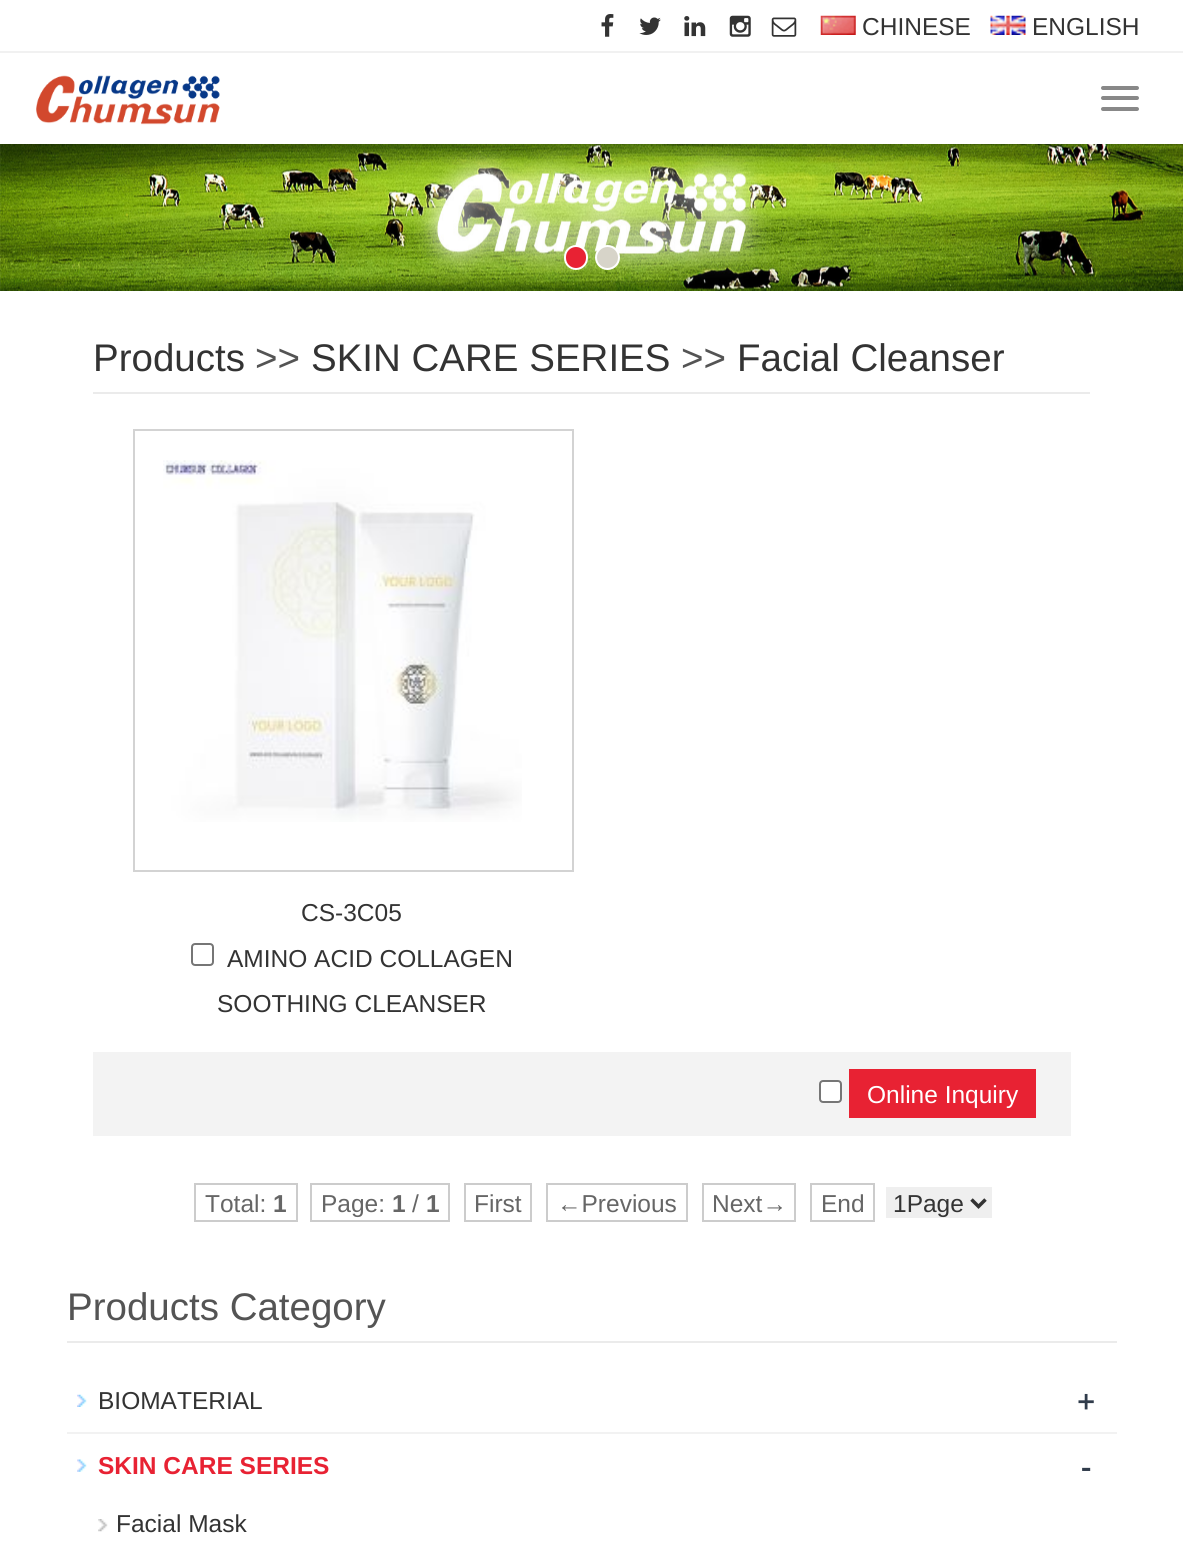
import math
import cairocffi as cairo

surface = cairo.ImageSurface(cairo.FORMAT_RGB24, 1183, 1567)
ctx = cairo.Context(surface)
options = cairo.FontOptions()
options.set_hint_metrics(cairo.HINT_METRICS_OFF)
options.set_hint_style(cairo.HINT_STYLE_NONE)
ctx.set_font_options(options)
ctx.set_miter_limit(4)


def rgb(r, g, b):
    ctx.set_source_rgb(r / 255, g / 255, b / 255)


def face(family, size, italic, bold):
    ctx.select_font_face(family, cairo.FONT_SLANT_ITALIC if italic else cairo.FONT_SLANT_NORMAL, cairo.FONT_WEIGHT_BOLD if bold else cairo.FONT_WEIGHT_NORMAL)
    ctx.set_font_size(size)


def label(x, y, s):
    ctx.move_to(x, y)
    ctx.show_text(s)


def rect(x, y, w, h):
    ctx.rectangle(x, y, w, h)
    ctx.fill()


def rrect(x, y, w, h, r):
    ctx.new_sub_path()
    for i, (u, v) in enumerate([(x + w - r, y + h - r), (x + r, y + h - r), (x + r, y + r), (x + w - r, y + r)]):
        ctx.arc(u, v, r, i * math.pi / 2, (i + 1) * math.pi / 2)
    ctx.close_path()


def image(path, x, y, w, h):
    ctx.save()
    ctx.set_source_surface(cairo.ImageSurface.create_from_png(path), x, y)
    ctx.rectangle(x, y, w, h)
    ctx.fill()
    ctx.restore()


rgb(255, 255, 255)
ctx.paint()
rgb(241, 241, 241)
rect(0, 51, 1183, 2)
image('image0.png', 601, 14, 13, 23)
image('image1.png', 639, 17, 22, 18)
image('image2.png', 684, 16, 22, 21)
image('image3.png', 729, 15, 22, 22)
image('image4.png', 771, 17, 26, 20)
image('image5.png', 820, 15, 36, 20)
face('Liberation Sans', 24.5, 0, 0)
rgb(51, 51, 51)
label(862, 35, 'CHINESE')
image('image6.png', 990, 15, 36, 20)
label(1032, 35, 'ENGLISH')
image('image7.png', 36, 75, 184, 50)
rgb(136, 136, 136)
rrect(1101, 86, 38, 4, 2)
ctx.fill()
rrect(1101, 96, 38, 4, 2)
ctx.fill()
rrect(1101, 107, 38, 4, 2)
ctx.fill()
image('image8.png', 0, 144, 1183, 147)
rgb(232, 34, 51)
rrect(565, 246, 22, 23, 11)
ctx.fill_preserve()
rgb(255, 255, 255)
ctx.stroke()
rgb(215, 212, 201)
ctx.arc(607.5, 257.5, 11.5, 0, 2 * math.pi)
ctx.fill_preserve()
rgb(255, 255, 255)
ctx.stroke()
rgb(235, 235, 235)
rect(93, 392, 997, 2)
face('Liberation Sans', 38.5, 0, 0)
rgb(51, 51, 51)
label(93, 371, 'Products')
rgb(84, 84, 84)
label(255, 371, '>>')
rgb(51, 51, 51)
label(311, 371, 'SKIN CARE SERIES')
rgb(84, 84, 84)
label(681, 371, '>>')
rgb(51, 51, 51)
label(737, 371, 'Facial Cleanser')
ctx.rectangle(134, 430, 439, 441)
rgb(211, 211, 211)
ctx.stroke()
image('image9.png', 163, 460, 359, 362)
face('Liberation Sans', 24.5, 0, 0)
rgb(51, 51, 51)
label(301, 921, 'CS-3C05')
rrect(192, 944, 21, 21, 3)
rgb(118, 118, 118)
ctx.stroke()
rgb(51, 51, 51)
label(227, 967, 'AMINO ACID COLLAGEN')
label(217, 1012, 'SOOTHING CLEANSER')
rgb(243, 243, 243)
rect(93, 1052, 978, 84)
rgb(255, 255, 255)
rrect(820, 1081, 21, 21, 3)
ctx.fill_preserve()
rgb(118, 118, 118)
ctx.stroke()
rgb(232, 34, 51)
rect(849, 1069, 187, 49)
rgb(255, 255, 255)
label(867, 1103, 'Online Inquiry')
rgb(102, 102, 102)
label(205, 1212, 'Total:')
rgb(204, 204, 204)
rect(194, 1183, 104, 2)
rect(194, 1220, 79, 2)
rect(194, 1183, 2, 39)
face('Liberation Sans', 24.5, 0, 1)
rgb(102, 102, 102)
label(273, 1212, '1')
rgb(204, 204, 204)
rect(296, 1183, 2, 39)
rect(273, 1220, 25, 2)
face('Liberation Sans', 24.5, 0, 0)
rgb(102, 102, 102)
label(321, 1212, 'Page:')
rgb(204, 204, 204)
rect(310, 1220, 115, 2)
rect(310, 1183, 140, 2)
rect(310, 1183, 2, 39)
face('Liberation Sans', 24.5, 0, 1)
rgb(102, 102, 102)
label(392, 1212, '1')
face('Liberation Sans', 24.5, 0, 0)
label(412, 1212, '/')
face('Liberation Sans', 24.5, 0, 1)
label(426, 1212, '1')
rgb(204, 204, 204)
rect(448, 1183, 2, 39)
rect(425, 1220, 25, 2)
ctx.rectangle(465, 1184, 66, 37)
ctx.stroke()
face('Liberation Sans', 24.5, 0, 0)
rgb(102, 102, 102)
label(474, 1212, 'First')
ctx.rectangle(547, 1184, 140, 37)
rgb(204, 204, 204)
ctx.stroke()
rgb(102, 102, 102)
label(557, 1212, '←Previous')
ctx.rectangle(703, 1184, 92, 37)
rgb(204, 204, 204)
ctx.stroke()
rgb(102, 102, 102)
label(712, 1212, 'Next→')
ctx.rectangle(811, 1184, 63, 37)
rgb(204, 204, 204)
ctx.stroke()
rgb(102, 102, 102)
label(821, 1212, 'End')
rgb(239, 239, 239)
rect(886, 1187, 106, 31)
ctx.new_path()
ctx.move_to(971.5, 1199.5)
ctx.line_to(978.5, 1206.5)
ctx.line_to(985.5, 1199.5)
rgb(51, 51, 51)
ctx.set_line_width(3.5)
ctx.stroke()
label(893, 1212, '1Page')
rgb(235, 235, 235)
rect(67, 1341, 1050, 2)
face('Liberation Sans', 38.5, 0, 0)
rgb(84, 84, 84)
label(67, 1320, 'Products Category')
image('image10.png', 77, 1394, 10, 13)
rgb(242, 242, 242)
rect(67, 1432, 1050, 2)
face('Liberation Sans', 24.5, 0, 0)
rgb(51, 51, 51)
label(98, 1409, 'BIOMATERIAL')
face('Open Sans SemiBold', 32, 0, 0)
rgb(48, 60, 75)
label(1077, 1413, '+')
image('image11.png', 77, 1459, 10, 13)
face('Liberation Sans', 24.5, 0, 1)
rgb(232, 34, 51)
label(98, 1474, 'SKIN CARE SERIES')
face('Open Sans SemiBold', 32, 0, 0)
rgb(48, 60, 75)
label(1081, 1478, '-')
image('image12.png', 98, 1519, 10, 13)
face('Liberation Sans', 24.5, 0, 0)
rgb(51, 51, 51)
label(116, 1532, 'Facial Mask')
surface.write_to_png('render.png')
